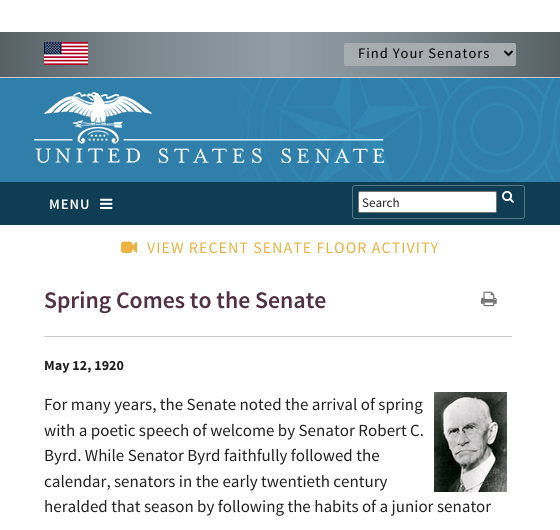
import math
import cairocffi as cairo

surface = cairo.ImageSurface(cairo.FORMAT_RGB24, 560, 530)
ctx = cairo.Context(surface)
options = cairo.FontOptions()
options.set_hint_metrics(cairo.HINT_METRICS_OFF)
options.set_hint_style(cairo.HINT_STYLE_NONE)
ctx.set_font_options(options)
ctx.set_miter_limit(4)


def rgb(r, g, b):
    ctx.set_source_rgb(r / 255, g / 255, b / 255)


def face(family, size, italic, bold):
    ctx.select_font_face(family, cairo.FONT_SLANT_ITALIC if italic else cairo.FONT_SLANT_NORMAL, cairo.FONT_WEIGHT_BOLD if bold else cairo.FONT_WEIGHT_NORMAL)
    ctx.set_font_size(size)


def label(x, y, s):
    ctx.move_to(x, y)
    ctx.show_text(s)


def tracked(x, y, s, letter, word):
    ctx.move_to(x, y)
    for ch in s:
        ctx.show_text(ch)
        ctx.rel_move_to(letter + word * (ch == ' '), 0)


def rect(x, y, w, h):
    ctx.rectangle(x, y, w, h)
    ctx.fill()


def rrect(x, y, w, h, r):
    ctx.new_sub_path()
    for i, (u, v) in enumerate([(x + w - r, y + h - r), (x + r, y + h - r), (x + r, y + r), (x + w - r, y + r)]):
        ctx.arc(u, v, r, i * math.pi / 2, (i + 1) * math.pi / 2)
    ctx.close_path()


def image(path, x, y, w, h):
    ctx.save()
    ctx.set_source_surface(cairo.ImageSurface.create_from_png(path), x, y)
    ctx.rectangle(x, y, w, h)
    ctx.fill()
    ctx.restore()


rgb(255, 255, 255)
ctx.paint()
gradient = cairo.LinearGradient(0, 32, 560, 32)
gradient.add_color_stop_rgba(0, 0.341, 0.38, 0.396, 1)
gradient.add_color_stop_rgba(0.25, 0.482, 0.533, 0.557, 1)
gradient.add_color_stop_rgba(0.5, 0.573, 0.62, 0.647, 1)
gradient.add_color_stop_rgba(0.75, 0.482, 0.533, 0.557, 1)
gradient.add_color_stop_rgba(1, 0.341, 0.38, 0.396, 1)
ctx.set_source(gradient)
rect(0, 32, 560, 45)
image('image0.png', 44, 42, 44, 23)
rgb(167, 172, 176)
rrect(344, 43, 172, 23, 2)
ctx.fill()
ctx.new_path()
ctx.move_to(504.5, 51)
ctx.line_to(508.5, 55)
ctx.line_to(512.5, 51)
rgb(0, 0, 0)
ctx.stroke()
face('Source Sans Pro', 14.5, 0, 0)
tracked(358, 58, 'Find Your Senators', 1, 0)
rgb(15, 61, 84)
rect(0, 182, 560, 43)
face('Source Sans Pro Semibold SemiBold', 14.5, 0, 0)
rgb(255, 255, 255)
tracked(49, 209, 'MENU', 1, 0)
image('image1.png', 100, 198, 13, 11)
rgb(47, 127, 170)
rect(0, 78, 239, 104)
image('image2.png', 239, 78, 321, 104)
rgb(204, 204, 204)
rect(0, 77, 560, 1)
image('image3.png', 34, 92, 350, 71)
rrect(352.5, 185.5, 172, 33, 2.5)
rgb(87, 119, 135)
ctx.set_line_width(1)
ctx.stroke()
rgb(255, 255, 255)
rrect(358.5, 191.5, 138, 21, 1.5)
ctx.fill_preserve()
rgb(118, 118, 118)
ctx.stroke()
face('Source Sans Pro', 13, 0, 0)
rgb(34, 34, 34)
label(362, 207, 'Search')
image('image4.png', 502, 191, 12, 12)
image('image5.png', 121, 241, 16, 12)
face('Source Sans Pro', 16, 0, 0)
rgb(238, 178, 65)
tracked(147, 253, 'VIEW RECENT SENATE FLOOR ACTIVITY', 1, 0)
face('Source Sans Pro Semibold SemiBold', 23.75, 0, 0)
rgb(82, 48, 68)
label(44, 308, 'Spring Comes to the Senate')
image('image6.png', 481, 291, 16, 16)
rgb(204, 204, 204)
rect(44, 336, 468, 1)
face('Source Sans Pro', 14, 0, 1)
rgb(34, 34, 34)
label(44, 370, 'May 12, 1920')
image('image7.png', 434, 392, 73, 100)
face('Source Sans Pro', 16.95, 0, 0)
label(44, 410, 'For many years, the Senate noted the arrival of spring')
label(44, 436, 'with a poetic speech of welcome by Senator Robert C.')
label(44, 461, 'Byrd. While Senator Byrd faithfully followed the')
label(44, 487, 'calendar, senators in the early twentieth century')
label(44, 512, 'heralded that season by following the habits of a junior senator')
surface.write_to_png('render.png')
